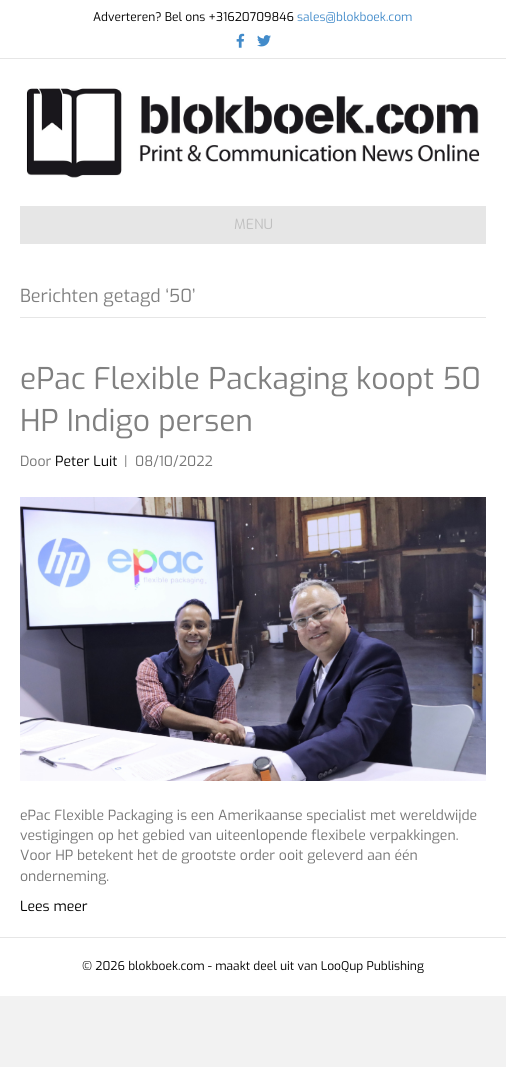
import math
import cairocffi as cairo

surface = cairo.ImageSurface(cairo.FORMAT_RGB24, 506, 1067)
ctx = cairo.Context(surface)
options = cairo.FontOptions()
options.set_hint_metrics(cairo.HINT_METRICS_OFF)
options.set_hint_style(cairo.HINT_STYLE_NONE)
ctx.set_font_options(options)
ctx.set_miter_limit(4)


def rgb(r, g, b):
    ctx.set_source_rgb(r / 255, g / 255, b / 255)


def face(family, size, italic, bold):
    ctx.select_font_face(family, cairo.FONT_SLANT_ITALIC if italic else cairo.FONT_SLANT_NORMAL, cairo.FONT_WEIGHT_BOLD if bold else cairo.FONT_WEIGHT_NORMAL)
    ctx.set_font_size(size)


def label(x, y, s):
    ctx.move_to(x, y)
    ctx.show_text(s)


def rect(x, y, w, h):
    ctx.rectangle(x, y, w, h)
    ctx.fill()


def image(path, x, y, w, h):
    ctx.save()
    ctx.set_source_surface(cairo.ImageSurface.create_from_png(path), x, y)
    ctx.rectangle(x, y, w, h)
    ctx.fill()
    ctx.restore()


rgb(242, 242, 242)
ctx.paint()
rgb(255, 255, 255)
rect(0, 0, 506, 58)
rgb(230, 230, 230)
rect(0, 58, 506, 1)
face('Exo', 12, 0, 0)
rgb(0, 0, 0)
label(93, 21, 'Adverteren? Bel ons +31620709846')
rgb(66, 139, 202)
label(297, 21, 'sales@blokboek.com')
image('image0.png', 236, 33, 9, 15)
image('image1.png', 257, 35, 14, 12)
rgb(255, 255, 255)
rect(0, 59, 506, 878)
image('image2.png', 26, 88, 454, 90)
rgb(230, 230, 230)
rect(20, 206, 466, 38)
face('Exo', 14, 0, 0)
rgb(192, 192, 192)
label(234, 229, 'MENU')
rgb(230, 230, 230)
rect(20, 317, 466, 1)
face('Exo', 18, 0, 0)
rgb(128, 128, 128)
label(20, 302, 'Berichten getagd ‘50’')
face('Exo', 30, 0, 0)
label(20, 389, 'ePac Flexible Packaging koopt 50')
label(20, 431, 'HP Indigo persen')
face('Exo', 14, 0, 0)
rgb(117, 117, 117)
label(20, 466, 'Door')
rgb(0, 0, 0)
label(55, 466, 'Peter Luit')
rgb(117, 117, 117)
label(124, 466, '|')
label(135, 466, '08/10/2022')
image('image3.png', 20, 497, 466, 284)
label(20, 820, 'ePac Flexible Packaging is een Amerikaanse specialist met wereldwijde')
label(20, 840, 'vestigingen op het gebied van uiteenlopende flexibele verpakkingen.')
label(20, 860, 'Voor HP betekent het de grootste order ooit geleverd aan één')
label(20, 881, 'onderneming.')
rgb(0, 0, 0)
label(20, 911, 'Lees meer')
rgb(255, 255, 255)
rect(0, 938, 506, 58)
rgb(230, 230, 230)
rect(0, 937, 506, 1)
face('Exo', 12, 0, 0)
rgb(0, 0, 0)
label(82, 970, '© 2026 blokboek.com - maakt deel uit van LooQup Publishing')
surface.write_to_png('render.png')
